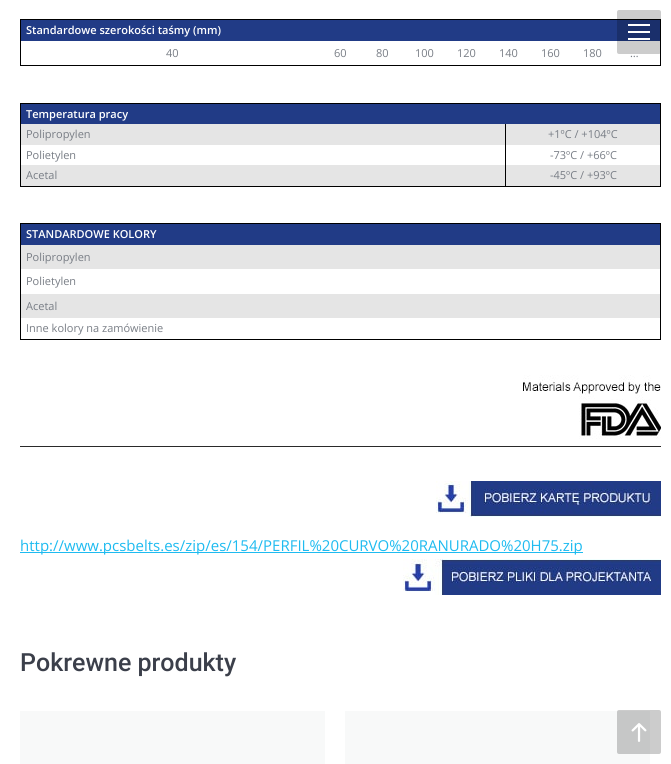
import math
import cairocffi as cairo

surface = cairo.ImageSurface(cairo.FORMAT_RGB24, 671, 764)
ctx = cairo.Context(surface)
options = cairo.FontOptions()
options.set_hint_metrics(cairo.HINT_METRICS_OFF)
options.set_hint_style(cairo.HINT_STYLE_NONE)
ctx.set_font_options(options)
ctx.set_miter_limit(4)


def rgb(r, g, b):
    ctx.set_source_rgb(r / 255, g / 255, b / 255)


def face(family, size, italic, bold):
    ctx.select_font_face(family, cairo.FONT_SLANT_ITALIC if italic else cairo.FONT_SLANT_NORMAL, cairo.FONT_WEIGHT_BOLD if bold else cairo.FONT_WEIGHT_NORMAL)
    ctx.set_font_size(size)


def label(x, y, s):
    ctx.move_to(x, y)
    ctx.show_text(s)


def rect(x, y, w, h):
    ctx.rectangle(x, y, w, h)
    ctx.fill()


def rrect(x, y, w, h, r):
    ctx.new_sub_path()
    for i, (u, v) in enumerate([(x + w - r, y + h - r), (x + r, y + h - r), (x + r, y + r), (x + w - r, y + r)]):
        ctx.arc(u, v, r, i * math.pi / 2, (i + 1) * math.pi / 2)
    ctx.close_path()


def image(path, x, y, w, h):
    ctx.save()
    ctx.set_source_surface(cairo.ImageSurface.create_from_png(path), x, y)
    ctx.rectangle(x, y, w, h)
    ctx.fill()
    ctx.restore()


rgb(255, 255, 255)
ctx.paint()
rgb(0, 0, 0)
rect(20, 19, 641, 1)
rect(660, 19, 1, 47)
rect(20, 65, 641, 1)
rect(20, 19, 1, 47)
rgb(33, 59, 134)
rect(21, 20, 639, 21)
face('Open Sans SemiBold', 11, 0, 0)
rgb(255, 255, 255)
label(26, 34, 'Standardowe szerokości taśmy (mm)')
face('Open Sans', 11, 0, 0)
rgb(120, 125, 133)
label(166, 57, '40')
label(334, 57, '60')
label(376, 57, '80')
label(415, 57, '100')
label(457, 57, '120')
label(499, 57, '140')
label(541, 57, '160')
label(583, 57, '180')
label(630, 57, '…')
rgb(0, 0, 0)
rect(20, 103, 641, 1)
rect(660, 103, 1, 84)
rect(20, 186, 641, 1)
rect(20, 103, 1, 84)
rgb(33, 59, 134)
rect(21, 104, 639, 20)
face('Open Sans SemiBold', 11, 0, 0)
rgb(255, 255, 255)
label(26, 118, 'Temperatura pracy')
rgb(229, 229, 229)
rect(21, 124, 639, 21)
face('Open Sans', 11, 0, 0)
rgb(120, 125, 133)
label(26, 138, 'Polipropylen')
label(548, 138, '+1ºC / +104ºC')
label(26, 159, 'Polietylen')
label(550, 159, '-73ºC / +66ºC')
rgb(229, 229, 229)
rect(21, 165, 639, 21)
rgb(0, 0, 0)
rect(505, 124, 1, 63)
rgb(120, 125, 133)
label(26, 179, 'Acetal')
label(550, 179, '-45ºC / +93ºC')
rgb(0, 0, 0)
rect(20, 223, 641, 1)
rect(660, 223, 1, 117)
rect(20, 339, 641, 1)
rect(20, 223, 1, 117)
rgb(33, 59, 134)
rect(21, 224, 639, 21)
face('Open Sans SemiBold', 11, 0, 0)
rgb(255, 255, 255)
label(26, 238, 'STANDARDOWE KOLORY')
rgb(229, 229, 229)
rect(21, 245, 639, 24)
face('Open Sans', 11, 0, 0)
rgb(120, 125, 133)
label(26, 261, 'Polipropylen')
label(26, 285, 'Polietylen')
rgb(229, 229, 229)
rect(21, 294, 639, 24)
rgb(120, 125, 133)
label(26, 310, 'Acetal')
label(26, 332, 'Inne kolory na zamówienie')
image('image0.png', 523, 375, 138, 64)
rgb(42, 42, 42)
rect(20, 446, 641, 1)
image('image1.png', 436, 481, 225, 36)
rgb(30, 187, 240)
rect(20, 552, 563, 1)
face('Open Sans', 15, 0, 0)
label(20, 551, 'http://www.pcsbelts.es/zip/es/154/PERFIL%20CURVO%20RANURADO%20H75.zip')
image('image2.png', 403, 559, 258, 36)
face('Roboto Medium', 25, 0, 0)
rgb(59, 63, 74)
label(20, 671, 'Pokrewne produkty')
rgb(248, 249, 249)
rect(20, 711, 305, 53)
rect(345, 711, 305, 53)
ctx.set_source_rgba(0, 0, 0, 0.2)
rrect(617, 10, 44, 44, 2)
ctx.fill()
rgb(255, 255, 255)
rect(628, 31, 22, 2)
rect(628, 24, 22, 2)
rect(628, 38, 22, 2)
ctx.set_source_rgba(0, 0, 0, 0.2)
rrect(617, 710, 44, 44, 2)
ctx.fill()
image('image3.png', 631, 723, 16, 19)
surface.write_to_png('render.png')
